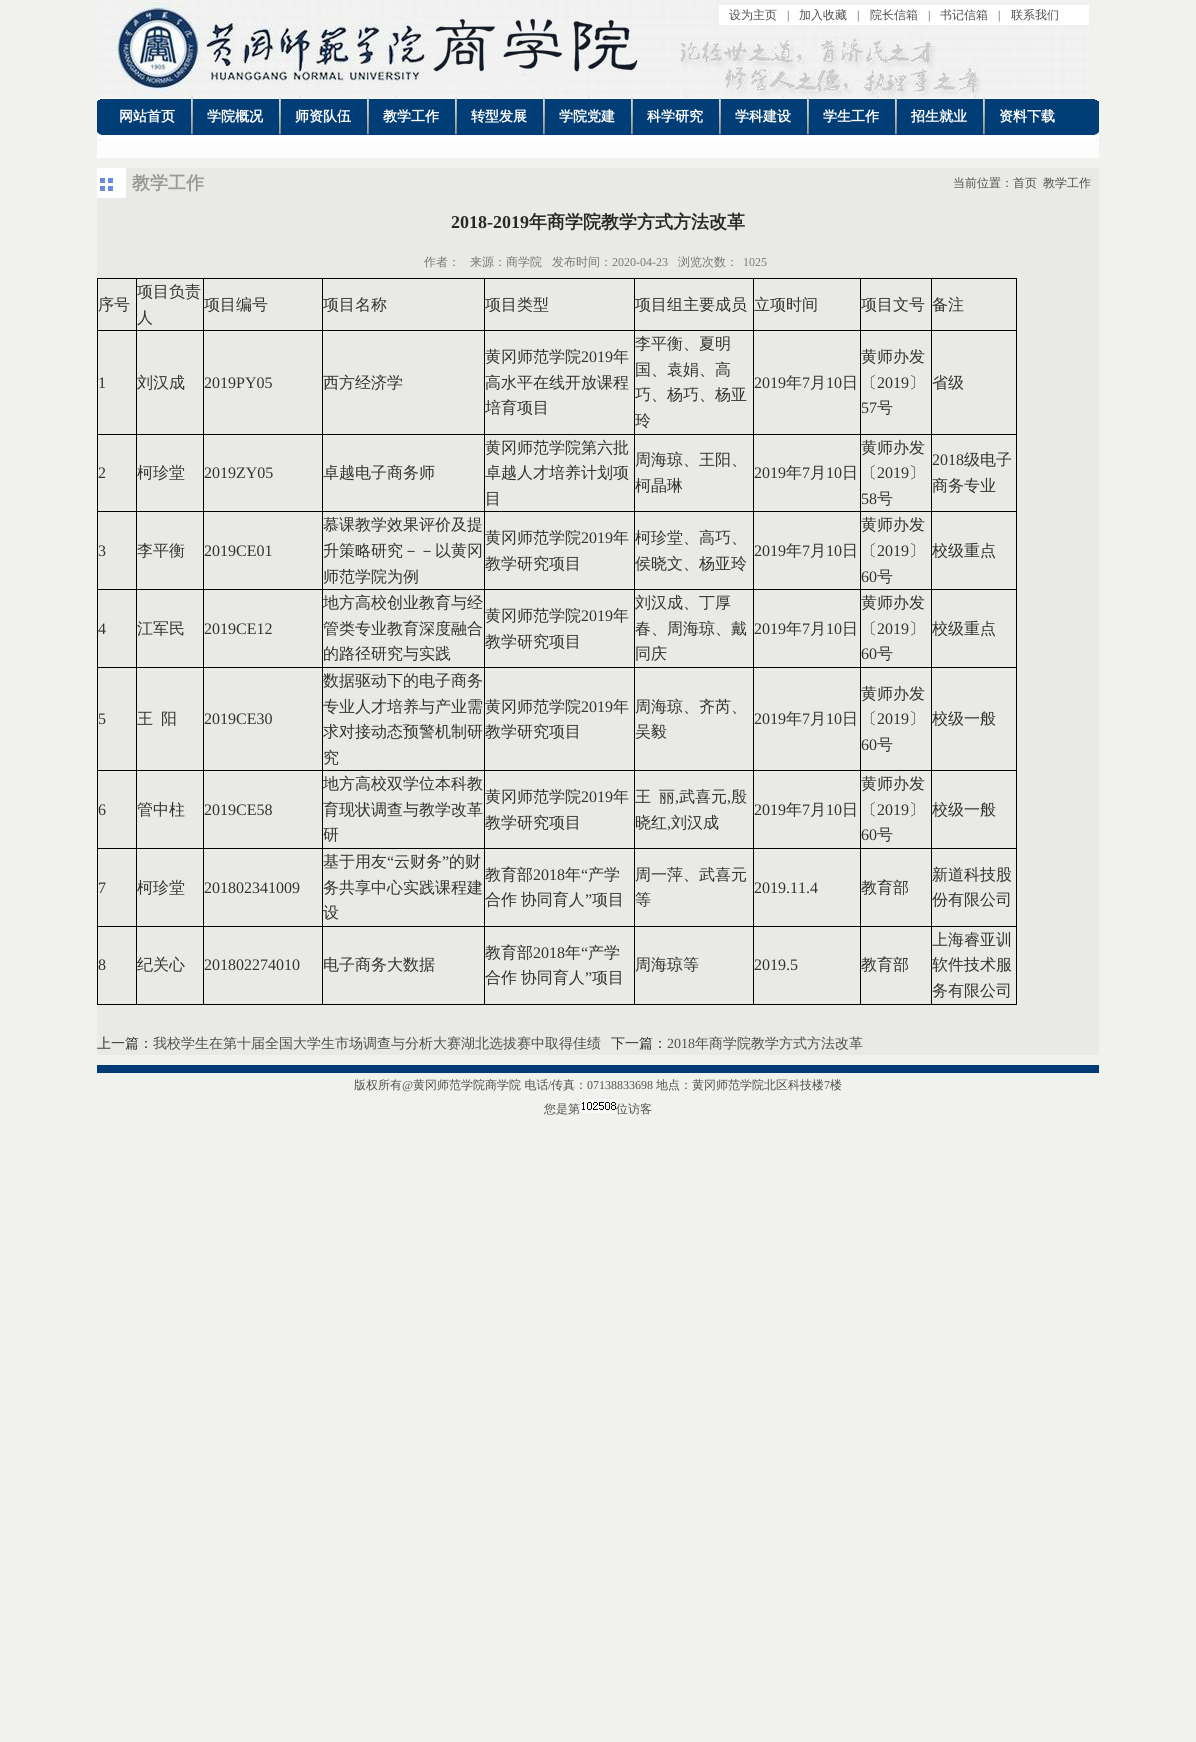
import math
import cairocffi as cairo

surface = cairo.ImageSurface(cairo.FORMAT_RGB24, 1196, 1742)
ctx = cairo.Context(surface)
options = cairo.FontOptions()
options.set_hint_metrics(cairo.HINT_METRICS_OFF)
options.set_hint_style(cairo.HINT_STYLE_NONE)
ctx.set_font_options(options)
ctx.set_miter_limit(4)


def rgb(r, g, b):
    ctx.set_source_rgb(r / 255, g / 255, b / 255)


def face(family, size, italic, bold):
    ctx.select_font_face(family, cairo.FONT_SLANT_ITALIC if italic else cairo.FONT_SLANT_NORMAL, cairo.FONT_WEIGHT_BOLD if bold else cairo.FONT_WEIGHT_NORMAL)
    ctx.set_font_size(size)


def label(x, y, s):
    ctx.move_to(x, y)
    ctx.show_text(s)


def tracked(x, y, s, letter, word):
    ctx.move_to(x, y)
    for ch in s:
        ctx.show_text(ch)
        ctx.rel_move_to(letter + word * (ch == ' '), 0)


def rect(x, y, w, h):
    ctx.rectangle(x, y, w, h)
    ctx.fill()


def image(path, x, y, w, h):
    ctx.save()
    ctx.set_source_surface(cairo.ImageSurface.create_from_png(path), x, y)
    ctx.rectangle(x, y, w, h)
    ctx.fill()
    ctx.restore()


rgb(241, 242, 237)
ctx.paint()
image('image0.png', 97, 0, 992, 98)
rgb(255, 255, 255)
rect(719, 5, 370, 20)
face('WenQuanYi Zen Hei Medium', 12, 0, 0)
rgb(79, 79, 77)
label(729, 19, '设为主页')
face('Liberation Serif', 12, 0, 0)
label(787, 19, '|')
face('WenQuanYi Zen Hei Medium', 12, 0, 0)
label(799, 19, '加入收藏')
face('Liberation Serif', 12, 0, 0)
label(857, 19, '|')
face('WenQuanYi Zen Hei Medium', 12, 0, 0)
label(870, 19, '院长信箱')
face('Liberation Serif', 12, 0, 0)
label(928, 19, '|')
face('WenQuanYi Zen Hei Medium', 12, 0, 0)
label(940, 19, '书记信箱')
face('Liberation Serif', 12, 0, 0)
label(998, 19, '|')
face('WenQuanYi Zen Hei Medium', 12, 0, 0)
label(1011, 19, '联系我们')
image('image1.png', 97, 98, 1002, 60)
face('WenQuanYi Zen Hei', 14, 0, 1)
rgb(255, 255, 255)
label(119, 121, '网站首页')
image('image2.png', 191, 98, 2, 36)
label(207, 121, '学院概况')
image('image2.png', 279, 98, 2, 36)
label(295, 121, '师资队伍')
image('image2.png', 367, 98, 2, 36)
label(383, 121, '教学工作')
image('image2.png', 455, 98, 2, 36)
label(471, 121, '转型发展')
image('image2.png', 543, 98, 2, 36)
label(559, 121, '学院党建')
image('image2.png', 631, 98, 2, 36)
label(647, 121, '科学研究')
image('image2.png', 719, 98, 2, 36)
label(735, 121, '学科建设')
image('image2.png', 807, 98, 2, 36)
label(823, 121, '学生工作')
image('image2.png', 895, 98, 2, 36)
label(911, 121, '招生就业')
image('image2.png', 983, 98, 2, 36)
label(999, 121, '资料下载')
rgb(233, 234, 229)
rect(97, 168, 1002, 887)
image('image3.png', 97, 168, 29, 30)
face('WenQuanYi Zen Hei', 18, 0, 1)
rgb(153, 153, 153)
label(132, 189, '教学工作')
face('WenQuanYi Zen Hei Medium', 12, 0, 0)
rgb(79, 79, 77)
label(953, 187, '当前位置：首页')
label(1043, 187, '教学工作')
face('Liberation Serif', 18, 0, 1)
rgb(40, 40, 40)
label(451, 228, '2018-2019')
face('WenQuanYi Zen Hei', 18, 0, 1)
label(529, 228, '年商学院教学方式方法改革')
face('WenQuanYi Zen Hei Medium', 12, 0, 0)
rgb(120, 120, 120)
label(424, 266, '作者：')
label(470, 266, '来源：商学院')
label(552, 266, '发布时间：')
face('Liberation Serif', 12, 0, 0)
label(612, 266, '2020-04-23')
face('WenQuanYi Zen Hei Medium', 12, 0, 0)
label(678, 266, '浏览次数：')
face('Liberation Serif', 12, 0, 0)
label(743, 266, '1025')
rgb(0, 0, 0)
rect(931, 278, 86, 1)
rect(931, 330, 86, 1)
rect(931, 434, 86, 1)
rect(931, 511, 86, 1)
rect(931, 589, 86, 1)
rect(931, 667, 86, 1)
rect(931, 770, 86, 1)
rect(931, 848, 86, 1)
rect(931, 926, 86, 1)
rect(1016, 926, 1, 79)
rect(931, 1004, 86, 1)
rect(931, 926, 1, 79)
rect(860, 926, 72, 1)
rect(931, 848, 1, 79)
rect(860, 848, 72, 1)
rect(931, 770, 1, 79)
rect(860, 770, 72, 1)
rect(931, 667, 1, 104)
rect(860, 667, 72, 1)
rect(931, 589, 1, 79)
rect(860, 589, 72, 1)
rect(931, 511, 1, 79)
rect(860, 511, 72, 1)
rect(931, 434, 1, 78)
rect(860, 434, 72, 1)
rect(931, 330, 1, 105)
rect(860, 330, 72, 1)
rect(931, 278, 1, 53)
rect(860, 278, 72, 1)
rect(860, 1004, 72, 1)
rect(860, 926, 1, 79)
rect(753, 926, 108, 1)
rect(860, 848, 1, 79)
rect(753, 848, 108, 1)
rect(860, 770, 1, 79)
rect(753, 770, 108, 1)
rect(860, 667, 1, 104)
rect(753, 667, 108, 1)
rect(860, 589, 1, 79)
rect(753, 589, 108, 1)
rect(860, 511, 1, 79)
rect(753, 511, 108, 1)
rect(860, 434, 1, 78)
rect(753, 434, 108, 1)
rect(860, 330, 1, 105)
rect(753, 330, 108, 1)
rect(860, 278, 1, 53)
rect(753, 278, 108, 1)
rect(753, 1004, 108, 1)
rect(753, 926, 1, 79)
rect(634, 926, 120, 1)
rect(753, 848, 1, 79)
rect(634, 848, 120, 1)
rect(753, 770, 1, 79)
rect(634, 770, 120, 1)
rect(753, 667, 1, 104)
rect(634, 667, 120, 1)
rect(753, 589, 1, 79)
rect(634, 589, 120, 1)
rect(753, 511, 1, 79)
rect(634, 511, 120, 1)
rect(753, 434, 1, 78)
rect(634, 434, 120, 1)
rect(753, 330, 1, 105)
rect(634, 330, 120, 1)
rect(753, 278, 1, 53)
rect(634, 278, 120, 1)
rect(634, 1004, 120, 1)
rect(634, 926, 1, 79)
rect(484, 926, 151, 1)
rect(634, 848, 1, 79)
rect(484, 848, 151, 1)
rect(634, 770, 1, 79)
rect(484, 770, 151, 1)
rect(634, 667, 1, 104)
rect(484, 667, 151, 1)
rect(634, 589, 1, 79)
rect(484, 589, 151, 1)
rect(634, 511, 1, 79)
rect(484, 511, 151, 1)
rect(634, 434, 1, 78)
rect(484, 434, 151, 1)
rect(634, 330, 1, 105)
rect(484, 330, 151, 1)
rect(634, 278, 1, 53)
rect(484, 278, 151, 1)
rect(484, 1004, 151, 1)
rect(484, 926, 1, 79)
rect(322, 926, 163, 1)
rect(484, 848, 1, 79)
rect(322, 848, 163, 1)
rect(484, 770, 1, 79)
rect(322, 770, 163, 1)
rect(484, 667, 1, 104)
rect(322, 667, 163, 1)
rect(484, 589, 1, 79)
rect(322, 589, 163, 1)
rect(484, 511, 1, 79)
rect(322, 511, 163, 1)
rect(484, 434, 1, 78)
rect(322, 434, 163, 1)
rect(484, 330, 1, 105)
rect(322, 330, 163, 1)
rect(484, 278, 1, 53)
rect(322, 278, 163, 1)
rect(322, 1004, 163, 1)
rect(322, 926, 1, 79)
rect(203, 926, 120, 1)
rect(322, 848, 1, 79)
rect(203, 848, 120, 1)
rect(322, 770, 1, 79)
rect(203, 770, 120, 1)
rect(322, 667, 1, 104)
rect(203, 667, 120, 1)
rect(322, 589, 1, 79)
rect(203, 589, 120, 1)
rect(322, 511, 1, 79)
rect(203, 511, 120, 1)
rect(322, 434, 1, 78)
rect(203, 434, 120, 1)
rect(322, 330, 1, 105)
rect(203, 330, 120, 1)
rect(322, 278, 1, 53)
rect(203, 278, 120, 1)
rect(203, 1004, 120, 1)
rect(203, 926, 1, 79)
rect(136, 926, 68, 1)
rect(203, 848, 1, 79)
rect(136, 848, 68, 1)
rect(203, 770, 1, 79)
rect(136, 770, 68, 1)
rect(203, 667, 1, 104)
rect(136, 667, 68, 1)
rect(203, 589, 1, 79)
rect(136, 589, 68, 1)
rect(203, 511, 1, 79)
rect(136, 511, 68, 1)
rect(203, 434, 1, 78)
rect(136, 434, 68, 1)
rect(203, 330, 1, 105)
rect(136, 330, 68, 1)
rect(203, 278, 1, 53)
rect(136, 278, 68, 1)
rect(136, 1004, 68, 1)
rect(136, 926, 1, 79)
rect(97, 926, 40, 1)
rect(136, 848, 1, 79)
rect(97, 848, 40, 1)
rect(136, 770, 1, 79)
rect(97, 770, 40, 1)
rect(136, 667, 1, 104)
rect(97, 667, 40, 1)
rect(136, 589, 1, 79)
rect(97, 589, 40, 1)
rect(136, 511, 1, 79)
rect(97, 511, 40, 1)
rect(136, 434, 1, 78)
rect(97, 434, 40, 1)
rect(136, 330, 1, 105)
rect(97, 330, 40, 1)
rect(136, 278, 1, 53)
rect(97, 278, 40, 1)
rect(97, 1004, 40, 1)
rect(97, 926, 1, 79)
rect(97, 848, 1, 79)
rect(97, 770, 1, 79)
rect(97, 667, 1, 104)
rect(97, 589, 1, 79)
rect(97, 511, 1, 79)
rect(97, 434, 1, 78)
rect(97, 330, 1, 105)
rect(97, 278, 1, 53)
face('WenQuanYi Zen Hei Medium', 16, 0, 0)
rgb(51, 51, 51)
label(98, 310, '序号')
label(137, 297, '项目负责')
label(137, 323, '人')
label(204, 310, '项目编号')
label(323, 310, '项目名称')
label(485, 310, '项目类型')
label(635, 310, '项目组主要成员')
label(754, 310, '立项时间')
label(861, 310, '项目文号')
rgb(0, 0, 0)
rect(1016, 848, 1, 79)
rect(1016, 770, 1, 79)
rect(1016, 667, 1, 104)
rect(1016, 589, 1, 79)
rect(1016, 511, 1, 79)
rect(1016, 434, 1, 78)
rect(1016, 330, 1, 105)
rect(1016, 278, 1, 53)
rgb(51, 51, 51)
label(932, 310, '备注')
face('Liberation Serif', 16, 0, 0)
label(98, 388, '1')
face('WenQuanYi Zen Hei Medium', 16, 0, 0)
label(137, 388, '刘汉成')
face('Liberation Serif', 16, 0, 0)
label(204, 388, '2019PY05')
face('WenQuanYi Zen Hei Medium', 16, 0, 0)
label(323, 388, '西方经济学')
label(485, 362, '黄冈师范学院')
face('Liberation Serif', 16, 0, 0)
label(581, 362, '2019')
face('WenQuanYi Zen Hei Medium', 16, 0, 0)
label(613, 362, '年')
label(485, 388, '高水平在线开放课程')
label(485, 413, '培育项目')
label(635, 349, '李平衡、夏明')
label(635, 375, '国、袁娟、高')
label(635, 400, '巧、杨巧、杨亚')
label(635, 426, '玲')
face('Liberation Serif', 16, 0, 0)
label(754, 388, '2019')
face('WenQuanYi Zen Hei Medium', 16, 0, 0)
label(786, 388, '年')
face('Liberation Serif', 16, 0, 0)
label(802, 388, '7')
face('WenQuanYi Zen Hei Medium', 16, 0, 0)
label(810, 388, '月')
face('Liberation Serif', 16, 0, 0)
label(826, 388, '10')
face('WenQuanYi Zen Hei Medium', 16, 0, 0)
label(842, 388, '日')
label(861, 362, '黄师办发')
label(861, 388, '〔')
face('Liberation Serif', 16, 0, 0)
label(877, 388, '2019')
face('WenQuanYi Zen Hei Medium', 16, 0, 0)
label(909, 388, '〕')
face('Liberation Serif', 16, 0, 0)
label(861, 413, '57')
face('WenQuanYi Zen Hei Medium', 16, 0, 0)
label(877, 413, '号')
label(932, 388, '省级')
face('Liberation Serif', 16, 0, 0)
label(98, 478, '2')
face('WenQuanYi Zen Hei Medium', 16, 0, 0)
label(137, 478, '柯珍堂')
face('Liberation Serif', 16, 0, 0)
label(204, 478, '2019ZY05')
face('WenQuanYi Zen Hei Medium', 16, 0, 0)
label(323, 478, '卓越电子商务师')
label(485, 453, '黄冈师范学院第六批')
label(485, 478, '卓越人才培养计划项')
label(485, 504, '目')
label(635, 465, '周海琼、王阳、')
label(635, 491, '柯晶琳')
face('Liberation Serif', 16, 0, 0)
label(754, 478, '2019')
face('WenQuanYi Zen Hei Medium', 16, 0, 0)
label(786, 478, '年')
face('Liberation Serif', 16, 0, 0)
label(802, 478, '7')
face('WenQuanYi Zen Hei Medium', 16, 0, 0)
label(810, 478, '月')
face('Liberation Serif', 16, 0, 0)
label(826, 478, '10')
face('WenQuanYi Zen Hei Medium', 16, 0, 0)
label(842, 478, '日')
label(861, 453, '黄师办发')
label(861, 478, '〔')
face('Liberation Serif', 16, 0, 0)
label(877, 478, '2019')
face('WenQuanYi Zen Hei Medium', 16, 0, 0)
label(909, 478, '〕')
face('Liberation Serif', 16, 0, 0)
label(861, 504, '58')
face('WenQuanYi Zen Hei Medium', 16, 0, 0)
label(877, 504, '号')
face('Liberation Serif', 16, 0, 0)
label(932, 465, '2018')
face('WenQuanYi Zen Hei Medium', 16, 0, 0)
label(964, 465, '级电子')
label(932, 491, '商务专业')
face('Liberation Serif', 16, 0, 0)
label(98, 556, '3')
face('WenQuanYi Zen Hei Medium', 16, 0, 0)
label(137, 556, '李平衡')
face('Liberation Serif', 16, 0, 0)
label(204, 556, '2019CE01')
face('WenQuanYi Zen Hei Medium', 16, 0, 0)
label(323, 530, '慕课教学效果评价及提')
label(323, 556, '升策略研究－－以黄冈')
label(323, 582, '师范学院为例')
label(485, 543, '黄冈师范学院')
face('Liberation Serif', 16, 0, 0)
label(581, 543, '2019')
face('WenQuanYi Zen Hei Medium', 16, 0, 0)
label(613, 543, '年')
label(485, 569, '教学研究项目')
label(635, 543, '柯珍堂、高巧、')
label(635, 569, '侯晓文、杨亚玲')
face('Liberation Serif', 16, 0, 0)
label(754, 556, '2019')
face('WenQuanYi Zen Hei Medium', 16, 0, 0)
label(786, 556, '年')
face('Liberation Serif', 16, 0, 0)
label(802, 556, '7')
face('WenQuanYi Zen Hei Medium', 16, 0, 0)
label(810, 556, '月')
face('Liberation Serif', 16, 0, 0)
label(826, 556, '10')
face('WenQuanYi Zen Hei Medium', 16, 0, 0)
label(842, 556, '日')
label(861, 530, '黄师办发')
label(861, 556, '〔')
face('Liberation Serif', 16, 0, 0)
label(877, 556, '2019')
face('WenQuanYi Zen Hei Medium', 16, 0, 0)
label(909, 556, '〕')
face('Liberation Serif', 16, 0, 0)
label(861, 582, '60')
face('WenQuanYi Zen Hei Medium', 16, 0, 0)
label(877, 582, '号')
label(932, 556, '校级重点')
face('Liberation Serif', 16, 0, 0)
label(98, 634, '4')
face('WenQuanYi Zen Hei Medium', 16, 0, 0)
label(137, 634, '江军民')
face('Liberation Serif', 16, 0, 0)
label(204, 634, '2019CE12')
face('WenQuanYi Zen Hei Medium', 16, 0, 0)
label(323, 608, '地方高校创业教育与经')
label(323, 634, '管类专业教育深度融合')
label(323, 659, '的路径研究与实践')
label(485, 621, '黄冈师范学院')
face('Liberation Serif', 16, 0, 0)
label(581, 621, '2019')
face('WenQuanYi Zen Hei Medium', 16, 0, 0)
label(613, 621, '年')
label(485, 647, '教学研究项目')
label(635, 608, '刘汉成、丁厚')
label(635, 634, '春、周海琼、戴')
label(635, 659, '同庆')
face('Liberation Serif', 16, 0, 0)
label(754, 634, '2019')
face('WenQuanYi Zen Hei Medium', 16, 0, 0)
label(786, 634, '年')
face('Liberation Serif', 16, 0, 0)
label(802, 634, '7')
face('WenQuanYi Zen Hei Medium', 16, 0, 0)
label(810, 634, '月')
face('Liberation Serif', 16, 0, 0)
label(826, 634, '10')
face('WenQuanYi Zen Hei Medium', 16, 0, 0)
label(842, 634, '日')
label(861, 608, '黄师办发')
label(861, 634, '〔')
face('Liberation Serif', 16, 0, 0)
label(877, 634, '2019')
face('WenQuanYi Zen Hei Medium', 16, 0, 0)
label(909, 634, '〕')
face('Liberation Serif', 16, 0, 0)
label(861, 659, '60')
face('WenQuanYi Zen Hei Medium', 16, 0, 0)
label(877, 659, '号')
label(932, 634, '校级重点')
face('Liberation Serif', 16, 0, 0)
label(98, 724, '5')
face('WenQuanYi Zen Hei Medium', 16, 0, 0)
label(137, 724, '王')
label(161, 724, '阳')
face('Liberation Serif', 16, 0, 0)
label(204, 724, '2019CE30')
face('WenQuanYi Zen Hei Medium', 16, 0, 0)
label(323, 686, '数据驱动下的电子商务')
label(323, 712, '专业人才培养与产业需')
label(323, 737, '求对接动态预警机制研')
label(323, 763, '究')
label(485, 712, '黄冈师范学院')
face('Liberation Serif', 16, 0, 0)
label(581, 712, '2019')
face('WenQuanYi Zen Hei Medium', 16, 0, 0)
label(613, 712, '年')
label(485, 737, '教学研究项目')
label(635, 712, '周海琼、齐芮、')
label(635, 737, '吴毅')
face('Liberation Serif', 16, 0, 0)
label(754, 724, '2019')
face('WenQuanYi Zen Hei Medium', 16, 0, 0)
label(786, 724, '年')
face('Liberation Serif', 16, 0, 0)
label(802, 724, '7')
face('WenQuanYi Zen Hei Medium', 16, 0, 0)
label(810, 724, '月')
face('Liberation Serif', 16, 0, 0)
label(826, 724, '10')
face('WenQuanYi Zen Hei Medium', 16, 0, 0)
label(842, 724, '日')
label(861, 699, '黄师办发')
label(861, 724, '〔')
face('Liberation Serif', 16, 0, 0)
label(877, 724, '2019')
face('WenQuanYi Zen Hei Medium', 16, 0, 0)
label(909, 724, '〕')
face('Liberation Serif', 16, 0, 0)
label(861, 750, '60')
face('WenQuanYi Zen Hei Medium', 16, 0, 0)
label(877, 750, '号')
label(932, 724, '校级一般')
face('Liberation Serif', 16, 0, 0)
label(98, 815, '6')
face('WenQuanYi Zen Hei Medium', 16, 0, 0)
label(137, 815, '管中柱')
face('Liberation Serif', 16, 0, 0)
label(204, 815, '2019CE58')
face('WenQuanYi Zen Hei Medium', 16, 0, 0)
label(323, 789, '地方高校双学位本科教')
label(323, 815, '育现状调查与教学改革')
label(323, 840, '研')
label(485, 802, '黄冈师范学院')
face('Liberation Serif', 16, 0, 0)
label(581, 802, '2019')
face('WenQuanYi Zen Hei Medium', 16, 0, 0)
label(613, 802, '年')
label(485, 828, '教学研究项目')
label(635, 802, '王')
label(659, 802, '丽')
face('Liberation Serif', 16, 0, 0)
label(675, 802, ',')
face('WenQuanYi Zen Hei Medium', 16, 0, 0)
label(679, 802, '武喜元')
face('Liberation Serif', 16, 0, 0)
label(727, 802, ',')
face('WenQuanYi Zen Hei Medium', 16, 0, 0)
label(731, 802, '殷')
label(635, 828, '晓红')
face('Liberation Serif', 16, 0, 0)
label(667, 828, ',')
face('WenQuanYi Zen Hei Medium', 16, 0, 0)
label(671, 828, '刘汉成')
face('Liberation Serif', 16, 0, 0)
label(754, 815, '2019')
face('WenQuanYi Zen Hei Medium', 16, 0, 0)
label(786, 815, '年')
face('Liberation Serif', 16, 0, 0)
label(802, 815, '7')
face('WenQuanYi Zen Hei Medium', 16, 0, 0)
label(810, 815, '月')
face('Liberation Serif', 16, 0, 0)
label(826, 815, '10')
face('WenQuanYi Zen Hei Medium', 16, 0, 0)
label(842, 815, '日')
label(861, 789, '黄师办发')
label(861, 815, '〔')
face('Liberation Serif', 16, 0, 0)
label(877, 815, '2019')
face('WenQuanYi Zen Hei Medium', 16, 0, 0)
label(909, 815, '〕')
face('Liberation Serif', 16, 0, 0)
label(861, 840, '60')
face('WenQuanYi Zen Hei Medium', 16, 0, 0)
label(877, 840, '号')
label(932, 815, '校级一般')
face('Liberation Serif', 16, 0, 0)
label(98, 893, '7')
face('WenQuanYi Zen Hei Medium', 16, 0, 0)
label(137, 893, '柯珍堂')
face('Liberation Serif', 16, 0, 0)
label(204, 893, '201802341009')
face('WenQuanYi Zen Hei Medium', 16, 0, 0)
label(323, 867, '基于用友')
face('Liberation Serif', 16, 0, 0)
label(387, 867, '“')
face('WenQuanYi Zen Hei Medium', 16, 0, 0)
label(394, 867, '云财务')
face('Liberation Serif', 16, 0, 0)
label(442, 867, '”')
face('WenQuanYi Zen Hei Medium', 16, 0, 0)
label(449, 867, '的财')
label(323, 893, '务共享中心实践课程建')
label(323, 918, '设')
label(485, 880, '教育部')
face('Liberation Serif', 16, 0, 0)
label(533, 880, '2018')
face('WenQuanYi Zen Hei Medium', 16, 0, 0)
label(565, 880, '年')
face('Liberation Serif', 16, 0, 0)
label(581, 880, '“')
face('WenQuanYi Zen Hei Medium', 16, 0, 0)
label(588, 880, '产学')
tracked(485, 905, '合作 协同育人', 0, -1)
face('Liberation Serif', 16, 0, 0)
label(585, 905, '”')
face('WenQuanYi Zen Hei Medium', 16, 0, 0)
label(592, 905, '项目')
label(635, 880, '周一萍、武喜元')
label(635, 905, '等')
face('Liberation Serif', 16, 0, 0)
label(754, 893, '2019.11.4')
face('WenQuanYi Zen Hei Medium', 16, 0, 0)
label(861, 893, '教育部')
label(932, 880, '新道科技股')
label(932, 905, '份有限公司')
face('Liberation Serif', 16, 0, 0)
label(98, 970, '8')
face('WenQuanYi Zen Hei Medium', 16, 0, 0)
label(137, 970, '纪关心')
face('Liberation Serif', 16, 0, 0)
label(204, 970, '201802274010')
face('WenQuanYi Zen Hei Medium', 16, 0, 0)
label(323, 970, '电子商务大数据')
label(485, 958, '教育部')
face('Liberation Serif', 16, 0, 0)
label(533, 958, '2018')
face('WenQuanYi Zen Hei Medium', 16, 0, 0)
label(565, 958, '年')
face('Liberation Serif', 16, 0, 0)
label(581, 958, '“')
face('WenQuanYi Zen Hei Medium', 16, 0, 0)
label(588, 958, '产学')
tracked(485, 983, '合作 协同育人', 0, -1)
face('Liberation Serif', 16, 0, 0)
label(585, 983, '”')
face('WenQuanYi Zen Hei Medium', 16, 0, 0)
label(592, 983, '项目')
label(635, 970, '周海琼等')
face('Liberation Serif', 16, 0, 0)
label(754, 970, '2019.5')
face('WenQuanYi Zen Hei Medium', 16, 0, 0)
label(861, 970, '教育部')
label(932, 945, '上海睿亚训')
label(932, 970, '软件技术服')
label(932, 996, '务有限公司')
face('WenQuanYi Zen Hei Medium', 14, 0, 0)
label(97, 1048, '上一篇：')
rgb(79, 79, 77)
label(153, 1048, '我校学生在第十届全国大学生市场调查与分析大赛湖北选拔赛中取得佳绩')
rgb(51, 51, 51)
label(611, 1048, '下一篇：')
face('Liberation Serif', 14, 0, 0)
rgb(79, 79, 77)
label(667, 1048, '2018')
face('WenQuanYi Zen Hei Medium', 14, 0, 0)
label(695, 1048, '年商学院教学方式方法改革')
rgb(1, 60, 118)
rect(97, 1065, 1002, 8)
face('WenQuanYi Zen Hei Medium', 12, 0, 0)
rgb(79, 79, 77)
label(354, 1089, '版权所有')
face('Liberation Serif', 12, 0, 0)
label(402, 1089, '@')
face('WenQuanYi Zen Hei Medium', 12, 0, 0)
label(413, 1089, '黄冈师范学院商学院 电话')
face('Liberation Serif', 12, 0, 0)
label(548, 1089, '/')
face('WenQuanYi Zen Hei Medium', 12, 0, 0)
label(551, 1089, '传真：')
face('Liberation Serif', 12, 0, 0)
label(587, 1089, '07138833698')
face('WenQuanYi Zen Hei Medium', 12, 0, 0)
label(656, 1089, '地点：黄冈师范学院北区科技楼')
face('Liberation Serif', 12, 0, 0)
label(824, 1089, '7')
face('WenQuanYi Zen Hei Medium', 12, 0, 0)
label(830, 1089, '楼')
label(544, 1113, '您是第')
image('image4.png', 580, 1099, 36, 14)
label(616, 1113, '位访客')
surface.write_to_png('render.png')
